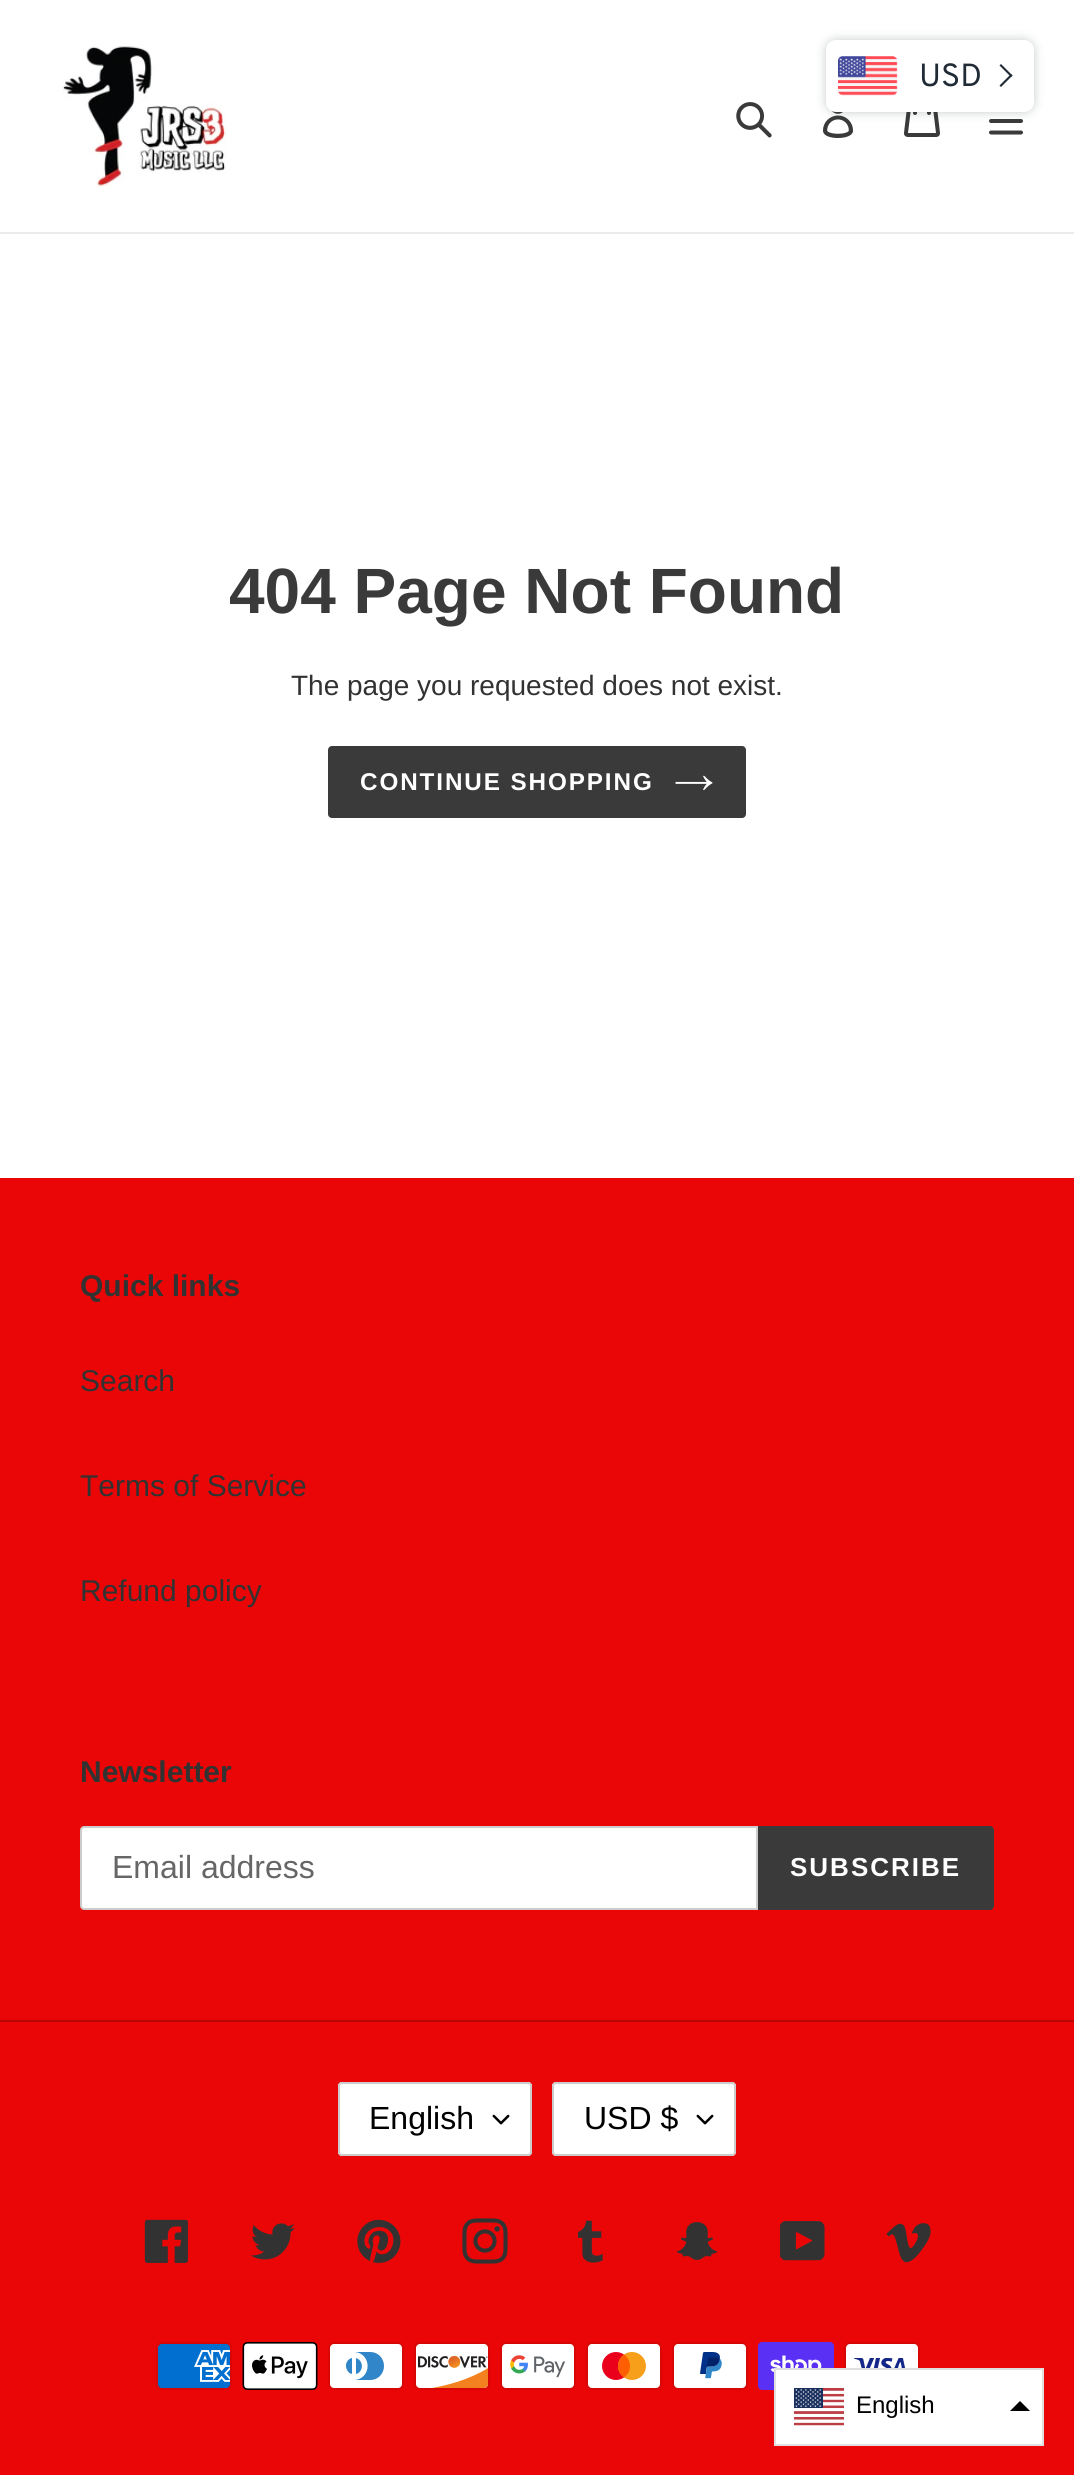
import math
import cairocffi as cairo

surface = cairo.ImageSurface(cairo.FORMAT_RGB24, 1074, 2475)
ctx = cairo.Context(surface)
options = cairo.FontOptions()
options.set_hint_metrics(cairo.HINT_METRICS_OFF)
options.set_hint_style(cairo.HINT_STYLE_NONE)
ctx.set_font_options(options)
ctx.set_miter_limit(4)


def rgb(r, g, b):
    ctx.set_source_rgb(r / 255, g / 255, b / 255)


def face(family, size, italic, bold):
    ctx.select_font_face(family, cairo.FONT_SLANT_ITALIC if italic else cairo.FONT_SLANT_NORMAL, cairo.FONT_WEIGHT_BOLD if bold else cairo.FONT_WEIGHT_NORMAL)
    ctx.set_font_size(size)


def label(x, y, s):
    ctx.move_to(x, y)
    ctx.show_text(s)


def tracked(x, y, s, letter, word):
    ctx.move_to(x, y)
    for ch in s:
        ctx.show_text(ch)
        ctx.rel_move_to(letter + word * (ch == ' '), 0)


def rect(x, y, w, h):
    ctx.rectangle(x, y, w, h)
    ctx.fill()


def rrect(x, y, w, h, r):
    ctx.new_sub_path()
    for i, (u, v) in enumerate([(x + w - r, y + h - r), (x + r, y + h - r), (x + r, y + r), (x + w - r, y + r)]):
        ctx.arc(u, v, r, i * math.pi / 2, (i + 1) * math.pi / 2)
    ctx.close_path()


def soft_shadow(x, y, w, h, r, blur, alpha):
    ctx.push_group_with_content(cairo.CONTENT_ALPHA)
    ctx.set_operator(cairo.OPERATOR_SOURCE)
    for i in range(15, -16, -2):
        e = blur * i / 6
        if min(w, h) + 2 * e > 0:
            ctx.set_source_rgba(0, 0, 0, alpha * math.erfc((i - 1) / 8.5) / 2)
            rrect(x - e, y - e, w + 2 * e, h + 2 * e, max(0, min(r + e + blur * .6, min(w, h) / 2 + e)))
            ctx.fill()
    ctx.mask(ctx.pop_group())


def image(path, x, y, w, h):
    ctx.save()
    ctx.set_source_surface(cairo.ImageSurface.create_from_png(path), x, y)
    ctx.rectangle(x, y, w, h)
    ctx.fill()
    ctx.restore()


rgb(255, 255, 255)
ctx.paint()
rgb(235, 235, 235)
rect(0, 232, 1074, 2)
image('image0.png', 62, 46, 165, 143)
image('image1.png', 736, 102, 36, 36)
image('image2.png', 823, 110, 31, 28)
image('image3.png', 904, 112, 36, 25)
image('image4.png', 989, 119, 34, 16)
rgb(33, 43, 54)
soft_shadow(826, 40, 208, 72, 10, 5, 0.25)
rgb(255, 255, 255)
rrect(826, 40, 208, 72, 10)
ctx.fill()
image('image5.png', 838, 56, 60, 40)
face('Overpass', 32, 0, 0)
rgb(33, 43, 54)
label(919, 86, 'USD')
ctx.new_path()
ctx.move_to(999.5, 65.5)
ctx.line_to(1001, 64)
ctx.line_to(1012.5, 75.5)
ctx.line_to(1011, 77)
ctx.close_path()
ctx.fill()
ctx.new_path()
ctx.move_to(999.5, 85.5)
ctx.line_to(1011, 74)
ctx.line_to(1012.5, 75.5)
ctx.line_to(1001, 87)
ctx.close_path()
ctx.fill()
face('Liberation Sans', 64, 0, 1)
rgb(58, 58, 58)
label(229, 613, '404 Page Not Found')
face('Liberation Sans', 28, 0, 0)
rgb(51, 50, 50)
label(291, 695, 'The page you requested does not exist.')
rgb(58, 58, 58)
rrect(328, 746, 418, 72, 4)
ctx.fill()
face('Liberation Sans', 24.25, 0, 1)
rgb(255, 255, 255)
tracked(360, 790, 'CONTINUE SHOPPING', 1.9, 0)
image('image6.png', 675, 775, 38, 15)
rgb(234, 6, 6)
rect(0, 1178, 1074, 1297)
face('Liberation Sans', 30, 0, 1)
rgb(51, 50, 50)
label(80, 1296, 'Quick links')
face('Liberation Sans', 30, 0, 0)
label(80, 1391, 'Search')
label(80, 1496, 'Terms of Service')
label(80, 1601, 'Refund policy')
face('Liberation Sans', 30, 0, 1)
label(80, 1782, 'Newsletter')
rgb(255, 255, 255)
ctx.new_path()
ctx.move_to(84, 1827)
ctx.line_to(757, 1827)
ctx.line_to(757, 1909)
ctx.line_to(84, 1909)
ctx.curve_to(82.5, 1909, 81, 1907.5, 81, 1906)
ctx.line_to(81, 1830)
ctx.curve_to(81, 1828.5, 82.5, 1827, 84, 1827)
ctx.close_path()
ctx.fill_preserve()
rgb(204, 204, 204)
ctx.stroke()
face('Liberation Sans', 32, 0, 0)
rgb(102, 102, 102)
label(112, 1878, 'Email address')
rgb(58, 58, 58)
ctx.new_path()
ctx.move_to(758, 1826)
ctx.line_to(990, 1826)
ctx.curve_to(992, 1826, 994, 1828, 994, 1830)
ctx.line_to(994, 1906)
ctx.curve_to(994, 1908, 992, 1910, 990, 1910)
ctx.line_to(758, 1910)
ctx.close_path()
ctx.fill()
face('Liberation Sans', 26, 0, 1)
rgb(255, 255, 255)
tracked(790, 1876, 'SUBSCRIBE', 2, 0)
rgb(184, 5, 5)
rect(0, 2020, 1074, 2)
rgb(255, 255, 255)
rrect(338, 2082, 194, 74, 4)
ctx.fill()
image('image7.png', 492, 2114, 18, 11)
rrect(339, 2083, 192, 72, 3)
rgb(204, 204, 204)
ctx.stroke()
face('Liberation Sans', 32, 0, 0)
rgb(0, 0, 0)
label(369, 2129, 'English')
rgb(255, 255, 255)
rrect(552, 2082, 184, 74, 4)
ctx.fill()
image('image7.png', 696, 2114, 18, 11)
rrect(553, 2083, 182, 72, 3)
rgb(204, 204, 204)
ctx.stroke()
rgb(0, 0, 0)
label(584, 2129, 'USD $')
image('image8.png', 144, 2219, 44, 44)
image('image9.png', 251, 2223, 44, 37)
image('image10.png', 357, 2219, 44, 44)
image('image11.png', 462, 2218, 46, 46)
image('image12.png', 578, 2220, 25, 43)
image('image13.png', 676, 2222, 42, 38)
image('image14.png', 780, 2221, 45, 40)
image('image15.png', 886, 2223, 45, 40)
image('image16.png', 156, 2342, 76, 48)
image('image17.png', 242, 2342, 76, 48)
image('image18.png', 328, 2342, 76, 48)
image('image19.png', 414, 2342, 76, 48)
image('image20.png', 500, 2342, 76, 48)
image('image21.png', 586, 2342, 76, 48)
image('image22.png', 672, 2342, 76, 48)
image('image23.png', 758, 2342, 76, 48)
image('image24.png', 844, 2342, 76, 26)
ctx.rectangle(775, 2369, 268, 76)
rgb(224, 224, 224)
ctx.stroke()
rgb(255, 255, 255)
rect(776, 2370, 266, 74)
image('image25.png', 794, 2388, 50, 38)
face('Liberation Sans', 24, 0, 0)
rgb(0, 0, 0)
label(856, 2413, 'English')
ctx.set_fill_rule(cairo.FILL_RULE_EVEN_ODD)
ctx.new_path()
ctx.move_to(1010, 2411)
ctx.line_to(1020, 2401)
ctx.line_to(1030, 2411)
ctx.close_path()
ctx.fill()
surface.write_to_png('render.png')
